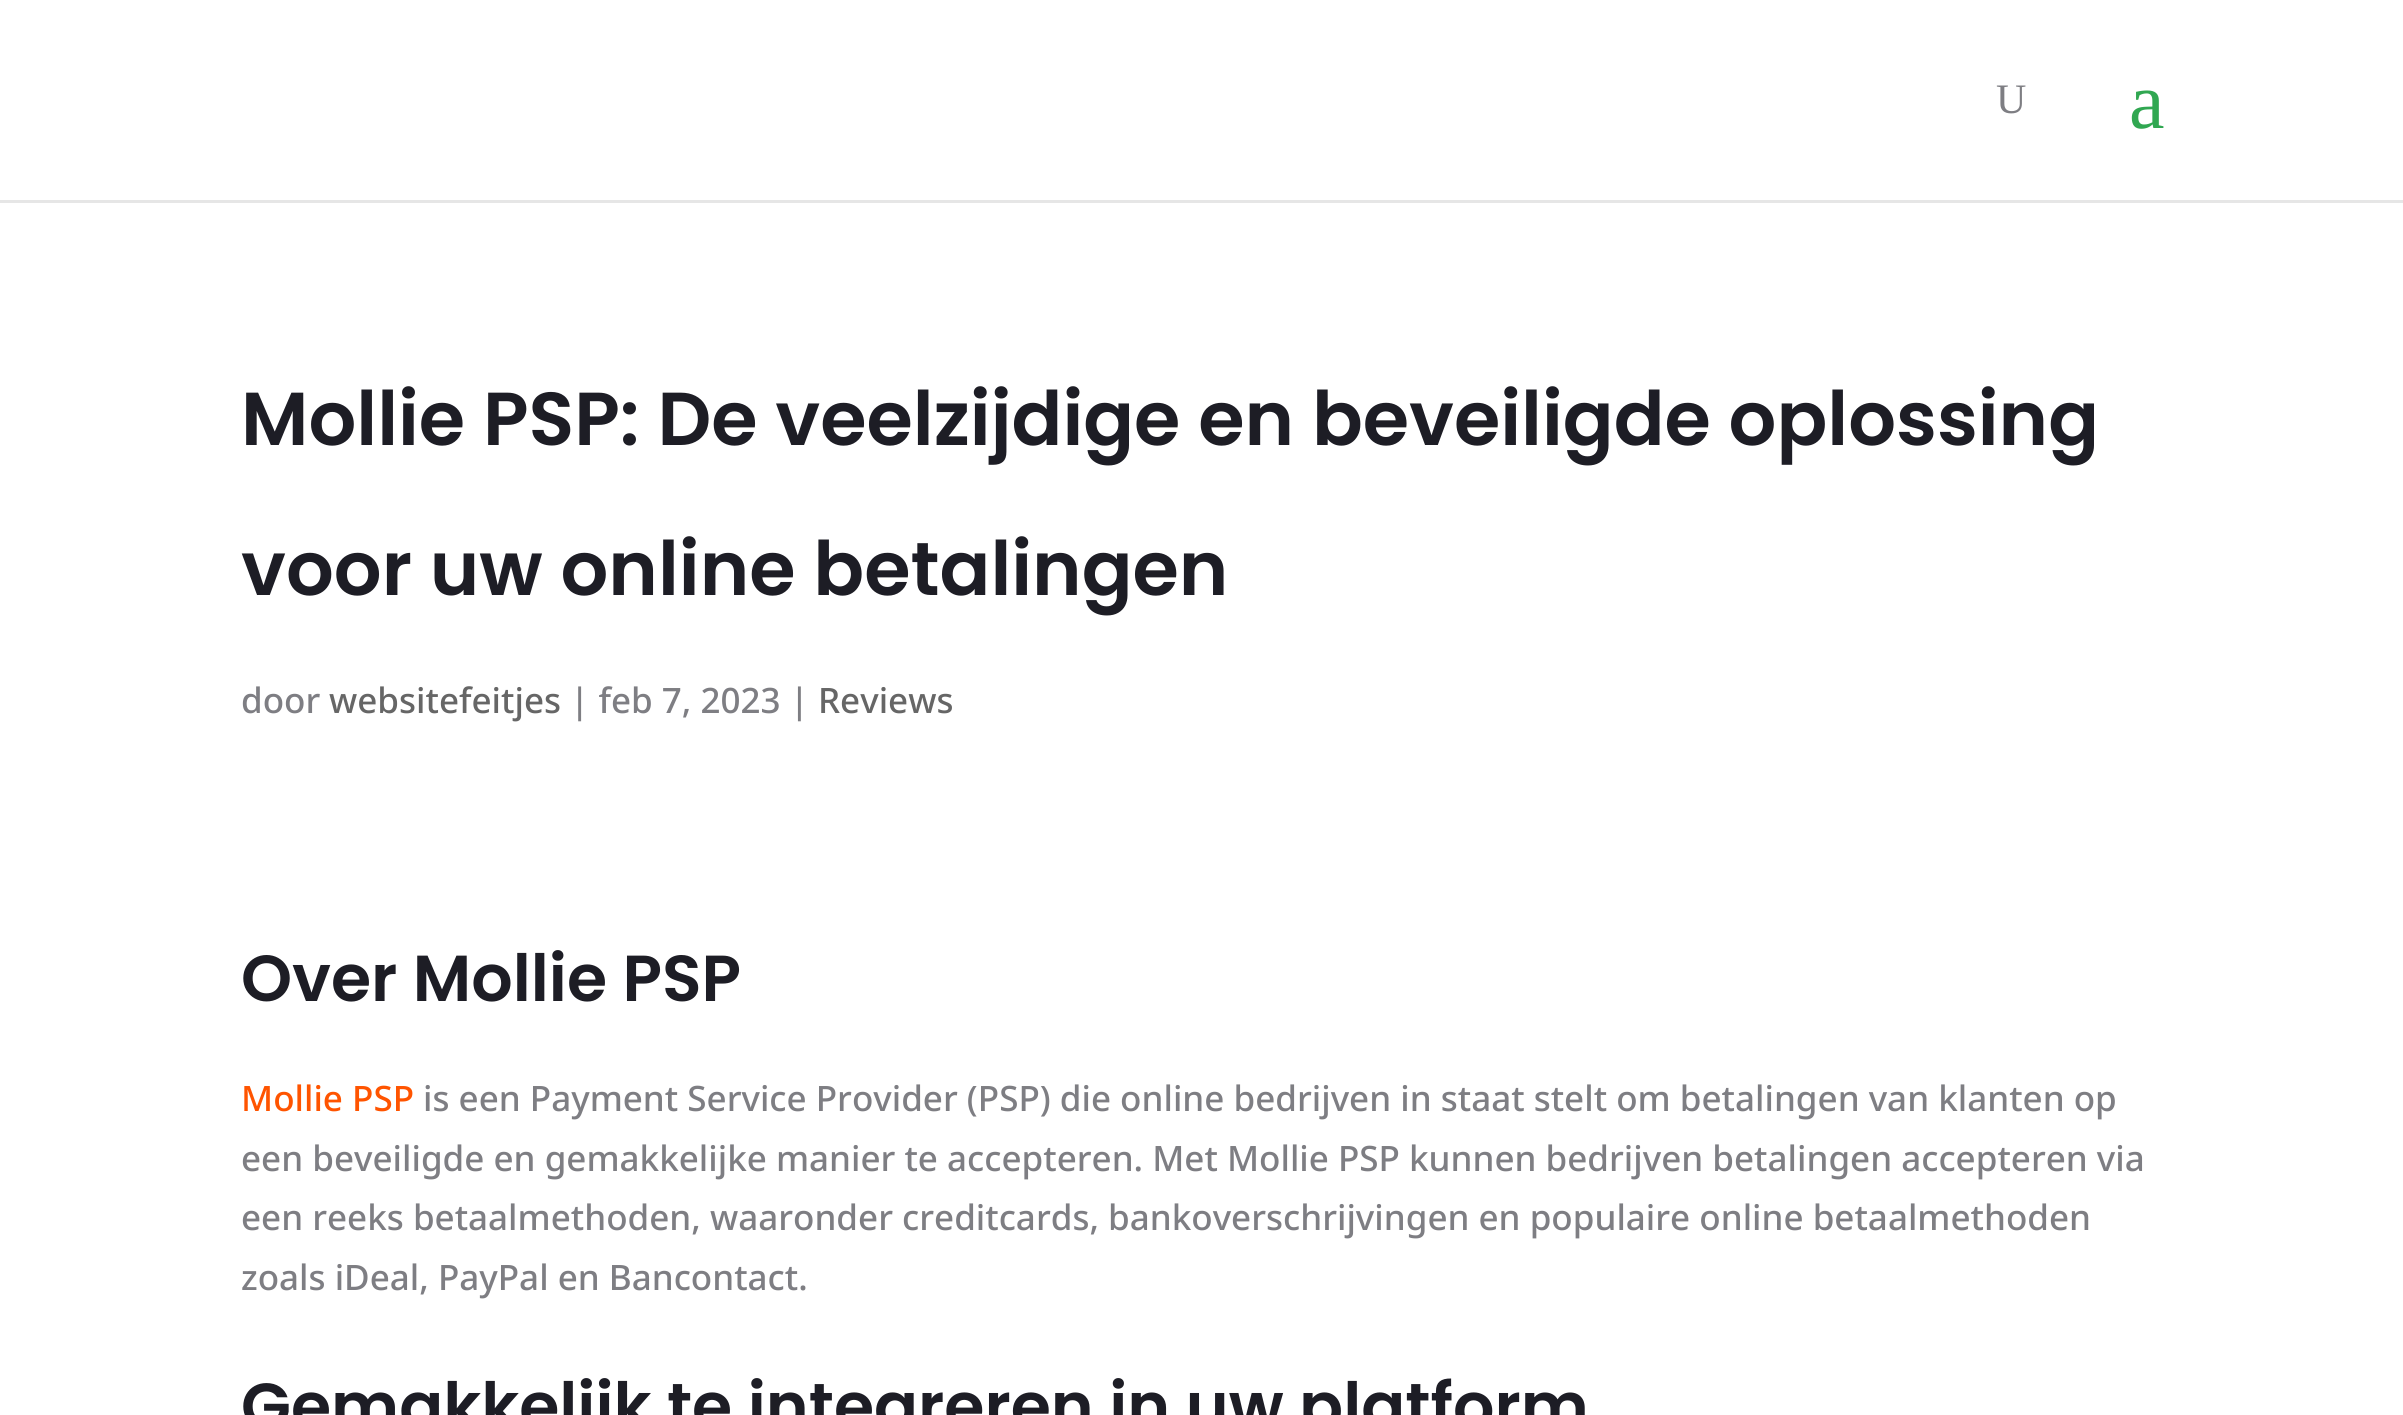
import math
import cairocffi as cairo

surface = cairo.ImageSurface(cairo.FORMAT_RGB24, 2403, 1415)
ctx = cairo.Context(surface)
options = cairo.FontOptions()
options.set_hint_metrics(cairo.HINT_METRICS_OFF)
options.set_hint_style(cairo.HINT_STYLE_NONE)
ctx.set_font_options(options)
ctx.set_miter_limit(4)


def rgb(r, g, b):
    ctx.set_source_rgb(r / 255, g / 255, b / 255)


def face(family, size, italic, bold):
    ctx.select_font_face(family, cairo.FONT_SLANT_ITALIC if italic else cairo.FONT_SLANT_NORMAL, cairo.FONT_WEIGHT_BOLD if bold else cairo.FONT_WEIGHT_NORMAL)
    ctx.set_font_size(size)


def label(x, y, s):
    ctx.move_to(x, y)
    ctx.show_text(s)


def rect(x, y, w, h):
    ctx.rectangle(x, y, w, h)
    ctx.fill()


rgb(255, 255, 255)
ctx.paint()
rgb(230, 230, 230)
rect(0, 200, 2403, 3)
face('Liberation Serif', 42, 0, 0)
rgb(126, 126, 131)
label(1996, 113, 'U')
face('Liberation Serif', 80, 0, 0)
rgb(48, 167, 81)
label(2129, 128, 'a')
face('Poppins SemiBold', 75, 0, 0)
rgb(29, 29, 37)
label(241, 445, 'Mollie PSP: De veelzijdige en beveiligde oplossing')
label(241, 595, 'voor uw online betalingen')
face('Noto Sans Medium', 35, 0, 0)
rgb(126, 126, 131)
label(241, 713, 'door')
rgb(102, 102, 102)
label(329, 713, 'websitefeitjes')
rgb(126, 126, 131)
label(570, 713, '| feb 7, 2023 |')
rgb(102, 102, 102)
label(818, 713, 'Reviews')
face('Poppins SemiBold', 65, 0, 0)
rgb(29, 29, 37)
label(241, 1001, 'Over Mollie PSP')
face('Noto Sans Medium', 35, 0, 0)
rgb(255, 84, 0)
label(241, 1111, 'Mollie PSP')
rgb(126, 126, 131)
label(423, 1111, 'is een Payment Service Provider (PSP) die online bedrijven in staat stelt om betalingen van klanten op')
label(241, 1171, 'een beveiligde en gemakkelijke manier te accepteren. Met Mollie PSP kunnen bedrijven betalingen accepteren via')
label(241, 1230, 'een reeks betaalmethoden, waaronder creditcards, bankoverschrijvingen en populaire online betaalmethoden')
label(241, 1290, 'zoals iDeal, PayPal en Bancontact.')
face('Poppins SemiBold', 65, 0, 0)
rgb(29, 29, 37)
label(241, 1429, 'Gemakkelijk te integreren in uw platform')
surface.write_to_png('render.png')
